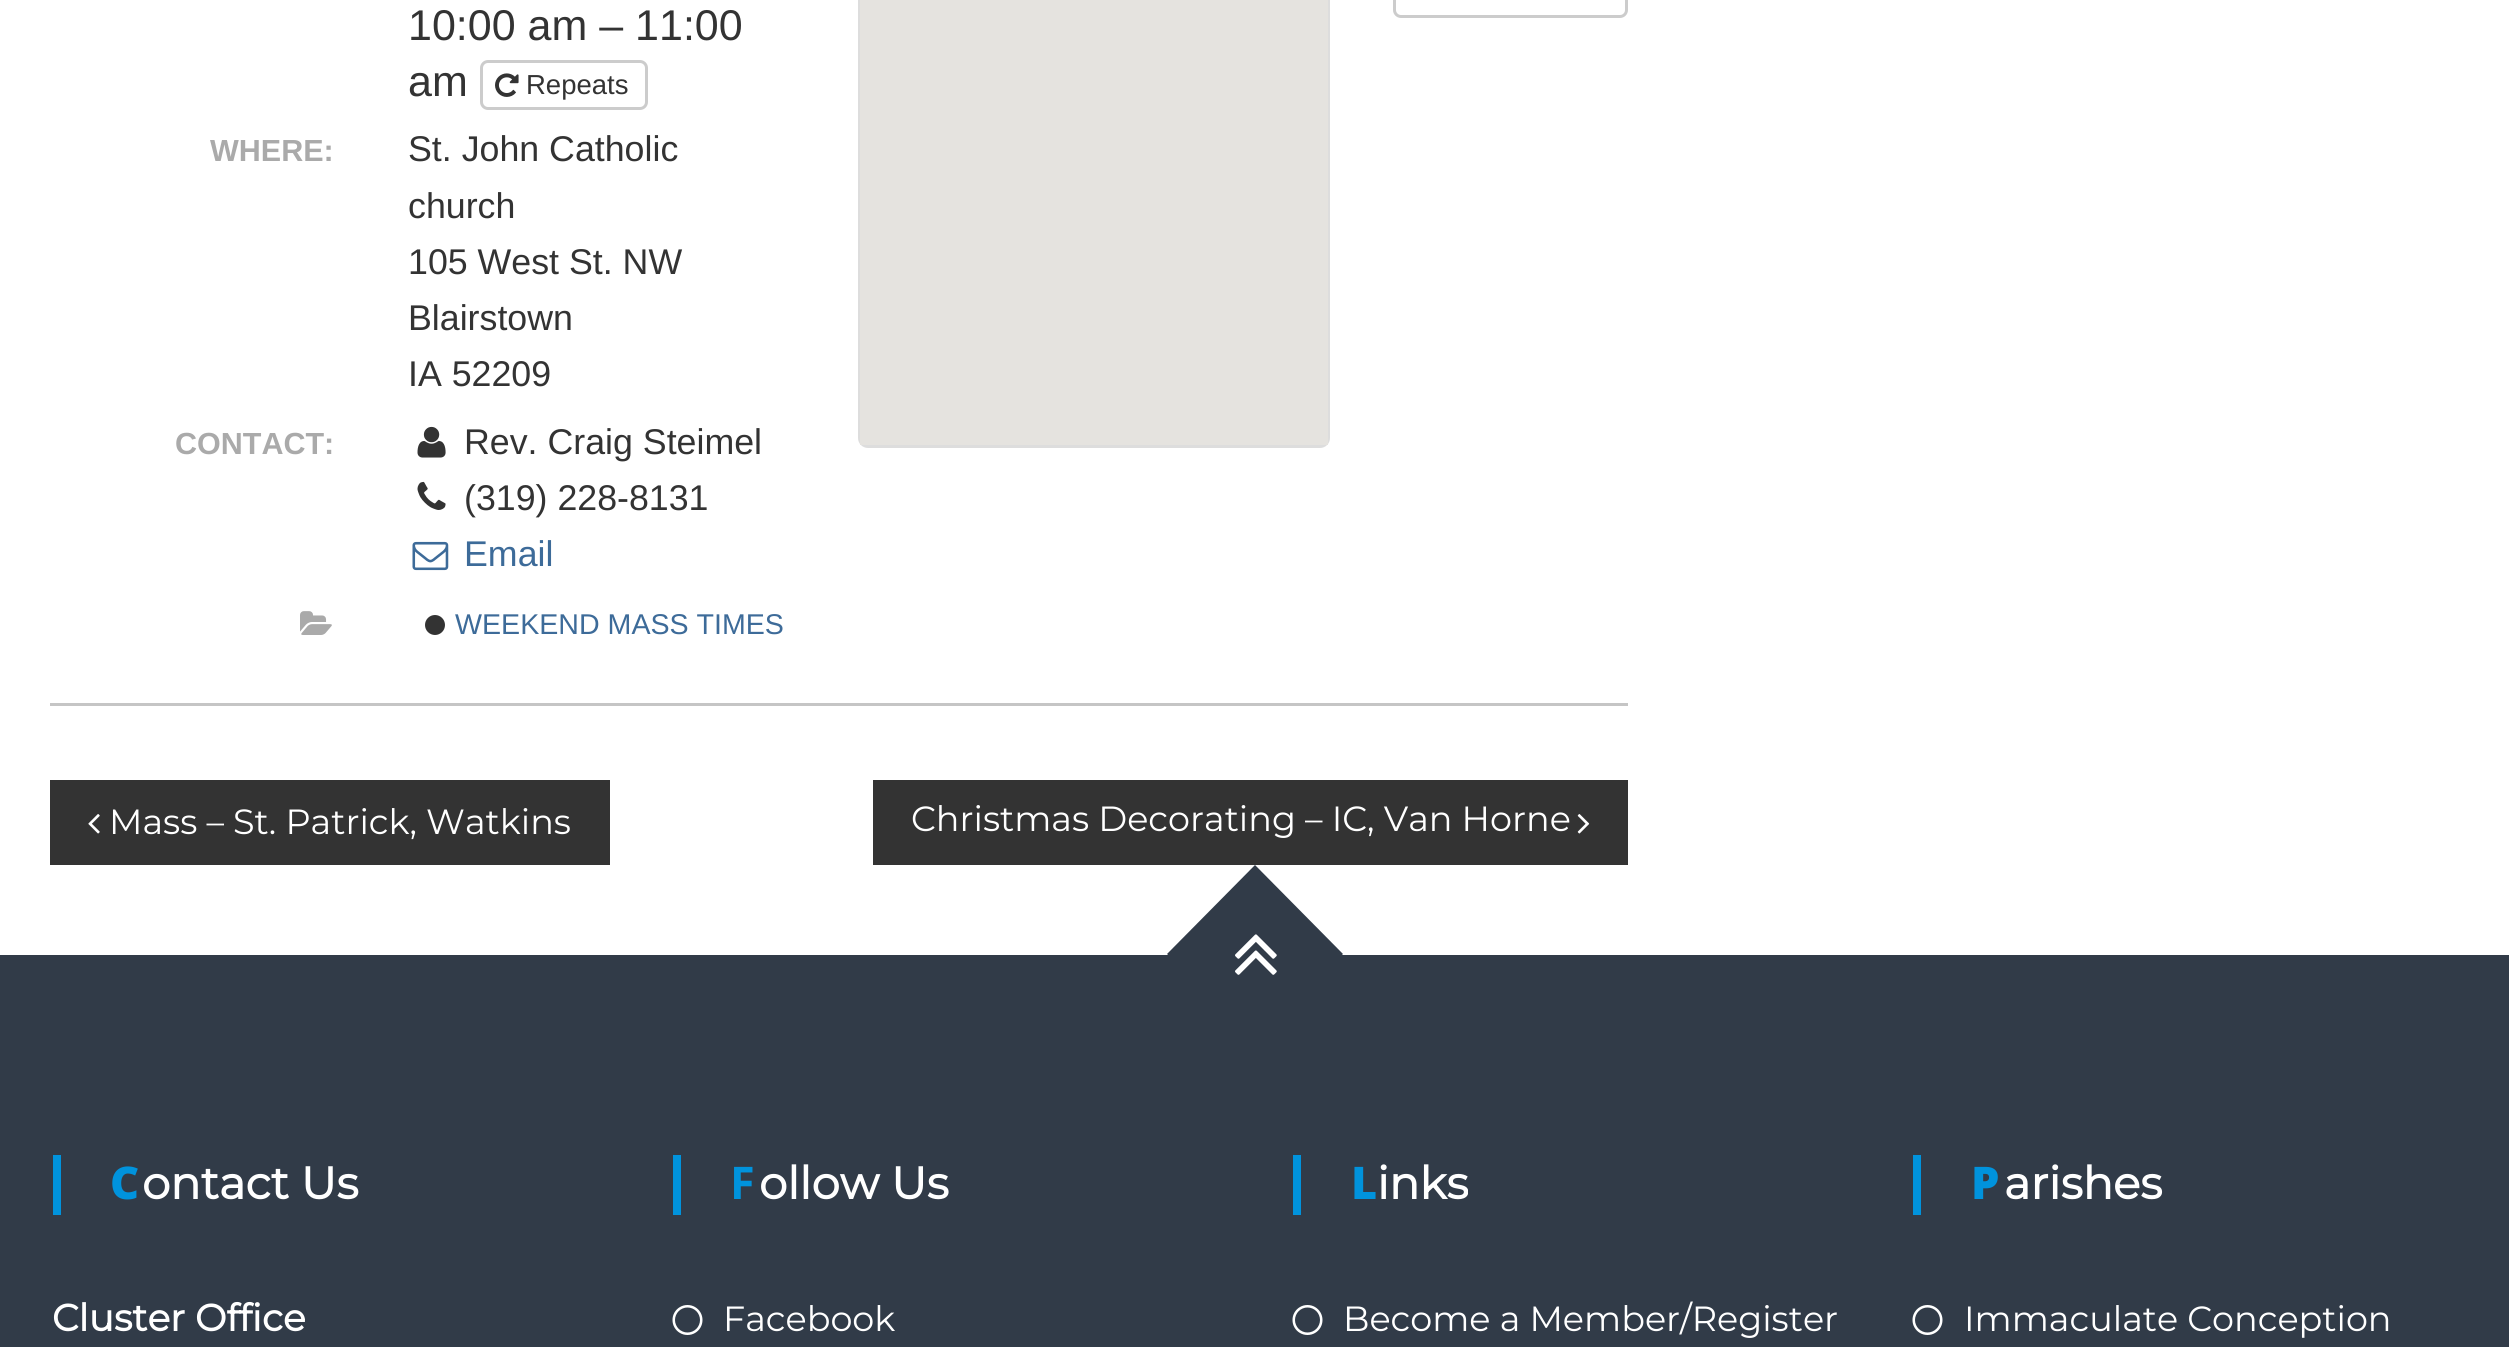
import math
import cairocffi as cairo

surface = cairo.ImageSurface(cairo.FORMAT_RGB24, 2509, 1347)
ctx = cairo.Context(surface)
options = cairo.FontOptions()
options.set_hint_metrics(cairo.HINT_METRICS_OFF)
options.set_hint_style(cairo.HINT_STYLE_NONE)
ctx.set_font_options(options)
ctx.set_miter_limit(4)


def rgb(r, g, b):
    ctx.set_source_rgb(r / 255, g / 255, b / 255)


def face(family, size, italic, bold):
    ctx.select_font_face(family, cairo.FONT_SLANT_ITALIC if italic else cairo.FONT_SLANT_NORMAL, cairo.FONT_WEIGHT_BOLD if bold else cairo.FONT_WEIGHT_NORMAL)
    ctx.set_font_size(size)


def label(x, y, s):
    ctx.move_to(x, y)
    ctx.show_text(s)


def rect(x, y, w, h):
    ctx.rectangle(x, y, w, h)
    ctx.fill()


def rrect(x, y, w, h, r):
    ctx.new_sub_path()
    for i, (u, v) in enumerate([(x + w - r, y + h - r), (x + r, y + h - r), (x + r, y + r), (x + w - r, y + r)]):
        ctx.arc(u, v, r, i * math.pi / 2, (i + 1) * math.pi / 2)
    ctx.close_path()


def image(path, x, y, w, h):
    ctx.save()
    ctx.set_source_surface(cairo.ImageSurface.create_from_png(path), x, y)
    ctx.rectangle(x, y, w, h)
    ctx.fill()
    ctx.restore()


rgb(255, 255, 255)
ctx.paint()
rgb(197, 197, 197)
rect(50, 703, 1578, 3)
rrect(1394.5, -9.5, 232, 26, 6.5)
rgb(204, 204, 204)
ctx.set_line_width(3)
ctx.stroke()
face('Liberation Sans', 43, 0, 0)
rgb(51, 51, 51)
label(408, 40, '10:00 am – 11:00')
label(408, 96, 'am')
rrect(481.5, 61.5, 165, 47, 6.5)
rgb(204, 204, 204)
ctx.stroke()
image('image0.png', 495, 73, 24, 24)
face('Liberation Sans', 27.5, 0, 0)
rgb(51, 51, 51)
label(526, 94, 'Repeats')
face('Liberation Sans', 30.5, 0, 1)
rgb(170, 170, 170)
label(210, 161, 'WHERE:')
face('Liberation Sans', 35.75, 0, 0)
rgb(51, 51, 51)
label(408, 161, 'St. John Catholic')
label(408, 218, 'church')
label(408, 274, '105 West St. NW')
label(408, 330, 'Blairstown')
label(408, 386, 'IA 52209')
face('Liberation Sans', 30.5, 0, 1)
rgb(170, 170, 170)
label(175, 454, 'CONTACT:')
image('image1.png', 417, 426, 29, 32)
face('Liberation Sans', 35.75, 0, 0)
rgb(51, 51, 51)
label(464, 454, 'Rev. Craig Steimel')
image('image2.png', 417, 481, 29, 29)
label(464, 510, '(319) 228-8131')
image('image3.png', 412, 541, 37, 30)
rgb(61, 107, 153)
label(464, 566, 'Email')
image('image4.png', 300, 611, 32, 24)
rgb(51, 51, 51)
ctx.arc(435, 625, 10, 0, 2 * math.pi)
ctx.fill()
face('Liberation Sans', 28.6, 0, 0)
rgb(61, 107, 153)
label(455, 634, 'WEEKEND MASS TIMES')
rrect(859.5, -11.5, 469, 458, 8.5)
rgb(221, 221, 221)
ctx.stroke()
rgb(229, 227, 223)
rect(860, 0, 468, 445)
rgb(51, 51, 51)
rect(50, 780, 560, 85)
image('image5.png', 88, 814, 12, 20)
face('Montserrat Thin', 35, 0, 0)
rgb(255, 255, 255)
label(109, 834, 'Mass – St. Patrick, Watkins')
rgb(51, 51, 51)
rect(873, 780, 755, 85)
rgb(255, 255, 255)
label(911, 831, 'Christmas Decorating – IC, Van Horne')
image('image6.png', 1577, 814, 13, 20)
rgb(49, 59, 72)
rect(0, 955, 2509, 392)
ctx.new_path()
ctx.move_to(1255, 865)
ctx.line_to(1343, 954)
ctx.line_to(1255, 1042)
ctx.line_to(1167, 954)
ctx.close_path()
ctx.fill()
image('image7.png', 1235, 934, 42, 41)
rgb(0, 147, 221)
rect(53, 1155, 8, 60)
face('Noto Sans Black', 45, 0, 0)
label(110, 1199, 'C')
face('Montserrat', 45, 0, 1)
rgb(255, 255, 255)
label(142, 1199, 'ontact Us')
face('Montserrat', 37.5, 0, 1)
label(52, 1331, 'Cluster Office')
rgb(0, 147, 221)
rect(673, 1155, 8, 60)
face('Noto Sans', 45, 0, 1)
label(730, 1199, 'F')
face('Montserrat', 45, 0, 1)
rgb(255, 255, 255)
label(759, 1199, 'ollow Us')
image('image8.png', 672, 1305, 31, 30)
face('Montserrat Thin', 35, 0, 0)
label(723, 1331, 'Facebook')
rgb(0, 147, 221)
rect(1293, 1155, 8, 60)
face('Noto Sans Black', 45, 0, 0)
label(1351, 1199, 'L')
face('Montserrat', 45, 0, 1)
rgb(255, 255, 255)
label(1377, 1199, 'inks')
image('image8.png', 1292, 1305, 31, 30)
face('Montserrat Thin', 35, 0, 0)
label(1343, 1331, 'Become a Member/Register')
rgb(0, 147, 221)
rect(1913, 1155, 8, 60)
face('Noto Sans Black', 45, 0, 0)
label(1971, 1199, 'P')
face('Montserrat', 45, 0, 1)
rgb(255, 255, 255)
label(2004, 1199, 'arishes')
image('image8.png', 1912, 1305, 31, 30)
face('Montserrat Thin', 35, 0, 0)
label(1964, 1331, 'Immaculate Conception')
surface.write_to_png('render.png')
